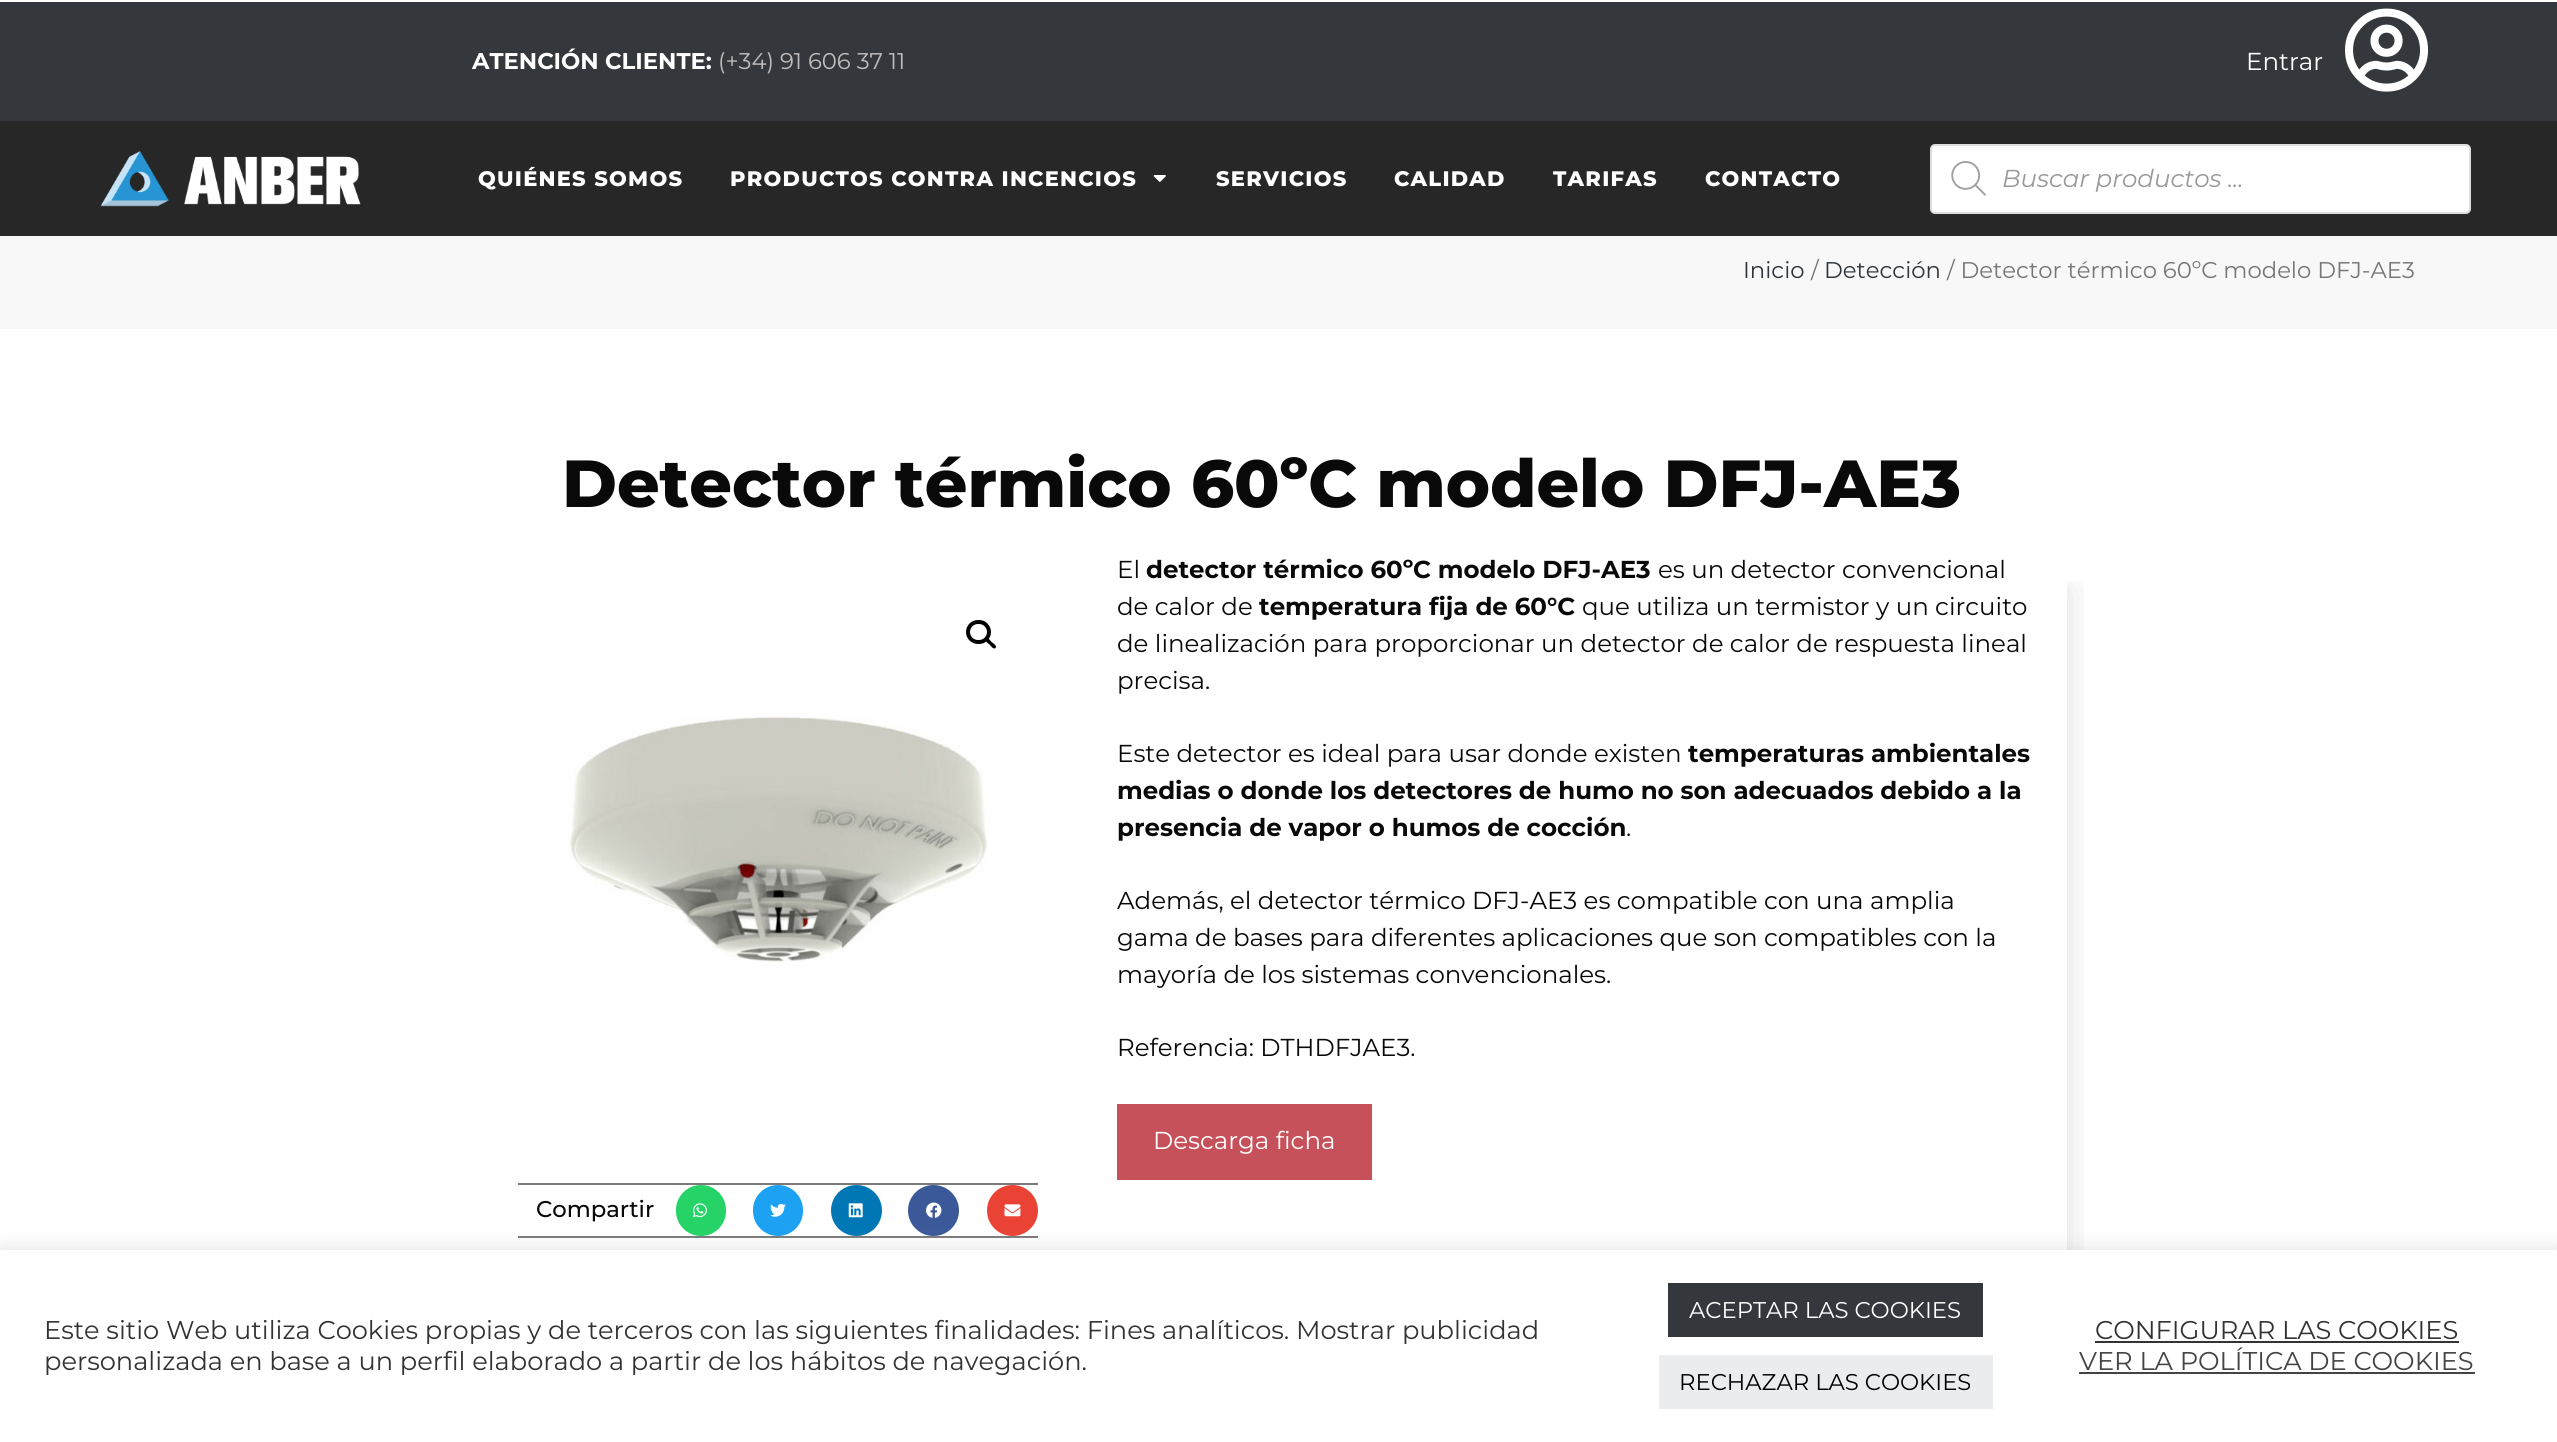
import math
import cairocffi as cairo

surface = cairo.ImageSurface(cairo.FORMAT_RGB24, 2557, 1442)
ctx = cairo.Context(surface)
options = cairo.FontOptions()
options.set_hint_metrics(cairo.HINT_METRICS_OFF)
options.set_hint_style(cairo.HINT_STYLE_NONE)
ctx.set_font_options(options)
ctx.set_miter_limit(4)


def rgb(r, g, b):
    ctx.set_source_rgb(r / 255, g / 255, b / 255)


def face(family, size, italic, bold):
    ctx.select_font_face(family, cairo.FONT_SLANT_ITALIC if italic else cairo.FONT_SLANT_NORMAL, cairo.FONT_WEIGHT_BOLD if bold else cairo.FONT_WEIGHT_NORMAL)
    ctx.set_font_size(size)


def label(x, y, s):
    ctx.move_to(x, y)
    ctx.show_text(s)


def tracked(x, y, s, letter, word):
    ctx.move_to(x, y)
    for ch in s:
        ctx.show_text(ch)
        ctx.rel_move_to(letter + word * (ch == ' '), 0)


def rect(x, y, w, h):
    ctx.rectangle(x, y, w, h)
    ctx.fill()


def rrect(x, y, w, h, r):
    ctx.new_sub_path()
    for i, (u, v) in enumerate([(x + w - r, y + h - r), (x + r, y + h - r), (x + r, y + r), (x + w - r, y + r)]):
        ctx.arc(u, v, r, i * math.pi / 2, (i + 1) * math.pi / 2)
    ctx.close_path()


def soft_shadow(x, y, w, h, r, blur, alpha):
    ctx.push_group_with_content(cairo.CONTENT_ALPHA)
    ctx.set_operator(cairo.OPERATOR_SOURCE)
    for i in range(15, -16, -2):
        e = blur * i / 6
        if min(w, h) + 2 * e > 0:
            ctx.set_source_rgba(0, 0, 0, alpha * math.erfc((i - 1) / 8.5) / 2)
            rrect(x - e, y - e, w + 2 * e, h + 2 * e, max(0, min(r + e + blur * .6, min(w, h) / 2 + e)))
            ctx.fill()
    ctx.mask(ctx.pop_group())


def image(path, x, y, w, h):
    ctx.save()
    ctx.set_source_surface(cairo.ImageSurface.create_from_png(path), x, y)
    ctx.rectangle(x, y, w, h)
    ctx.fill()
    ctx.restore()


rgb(255, 255, 255)
ctx.paint()
rgb(52, 56, 61)
rect(0, 2, 2557, 119)
face('Montserrat', 22.75, 0, 1)
rgb(255, 255, 255)
label(472, 69, 'ATENCIÓN CLIENTE:')
face('Montserrat', 22.75, 0, 0)
rgb(192, 189, 189)
label(718, 69, '(+34) 91 606 37 11')
face('Montserrat', 24.5, 0, 0)
rgb(255, 255, 255)
label(2246, 70, 'Entrar')
image('image0.png', 2345, 8, 84, 84)
rgb(39, 39, 39)
rect(0, 121, 2557, 115)
image('image1.png', 100, 151, 261, 56)
face('Montserrat ExtraBold', 21, 0, 0)
rgb(255, 255, 255)
tracked(478, 186, 'QUIÉNES SOMOS', 1.25, 0)
tracked(730, 186, 'PRODUCTOS CONTRA INCENCIOS', 1.25, 0)
image('image2.png', 1153, 175, 13, 7)
tracked(1216, 186, 'SERVICIOS', 1.25, 0)
tracked(1394, 186, 'CALIDAD', 1.25, 0)
tracked(1553, 186, 'TARIFAS', 1.25, 0)
tracked(1705, 186, 'CONTACTO', 1.25, 0)
rrect(1931, 145, 539, 68, 4)
ctx.fill_preserve()
rgb(221, 221, 221)
ctx.stroke()
image('image3.png', 1951, 161, 35, 35)
face('Montserrat', 24.5, 1, 0)
rgb(153, 153, 153)
label(2002, 187, 'Buscar productos ...')
rgb(248, 248, 248)
rect(0, 236, 2557, 93)
face('Montserrat', 22.75, 0, 0)
rgb(47, 53, 59)
label(1743, 278, 'Inicio')
rgb(118, 118, 118)
label(1811, 278, '/')
rgb(47, 53, 59)
label(1824, 278, 'Detección')
rgb(118, 118, 118)
label(1947, 278, '/ Detector térmico 60ºC modelo DFJ-AE3')
face('Montserrat ExtraBold', 66.5, 0, 0)
rgb(9, 9, 9)
label(562, 507, 'Detector térmico 60ºC modelo DFJ-AE3')
ctx.save()
ctx.rectangle(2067, 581, 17, 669)
ctx.clip()
rgb(0, 0, 0)
soft_shadow(1153, 590, 912, 742, 0, 17.5, 0.15)
ctx.restore()
face('Montserrat', 24.5, 0, 0)
label(1117, 578, 'El')
face('Montserrat', 24.5, 0, 1)
label(1146, 578, 'detector térmico 60ºC modelo DFJ-AE3')
face('Montserrat', 24.5, 0, 0)
label(1658, 578, 'es un detector convencional')
label(1117, 615, 'de calor de')
face('Montserrat', 24.5, 0, 1)
label(1259, 615, 'temperatura fija de 60°C')
face('Montserrat', 24.5, 0, 0)
label(1582, 615, 'que utiliza un termistor y un circuito')
label(1117, 652, 'de linealización para proporcionar un detector de calor de respuesta lineal')
label(1117, 689, 'precisa.')
label(1117, 762, 'Este detector es ideal para usar donde existen')
face('Montserrat', 24.5, 0, 1)
label(1688, 762, 'temperaturas ambientales')
label(1117, 799, 'medias o donde los detectores de humo no son adecuados debido a la')
label(1117, 836, 'presencia de vapor o humos de cocción')
face('Montserrat', 24.5, 0, 0)
label(1626, 836, '.')
label(1117, 909, 'Además, el detector térmico DFJ-AE3 es compatible con una amplia')
label(1117, 946, 'gama de bases para diferentes aplicaciones que son compatibles con la')
label(1117, 983, 'mayoría de los sistemas convencionales.')
label(1117, 1056, 'Referencia: DTHDFJAE3.')
rgb(199, 81, 90)
rect(1117, 1104, 255, 76)
rgb(255, 255, 255)
label(1153, 1149, 'Descarga ficha')
rrect(968, 622, 21, 20, 10)
rgb(0, 0, 0)
ctx.set_line_width(4)
ctx.stroke()
ctx.new_path()
ctx.move_to(985.5, 638)
ctx.curve_to(987.5, 636, 990.5, 641, 991.5, 642)
ctx.curve_to(993, 643, 997.5, 646, 995.5, 648)
ctx.curve_to(993.5, 650, 990.5, 645.5, 989.5, 644.5)
ctx.curve_to(988, 643.5, 983.5, 640, 985.5, 638)
ctx.close_path()
ctx.fill()
image('image4.png', 568, 716, 419, 247)
rgb(122, 122, 122)
rect(518, 1183, 520, 2)
rect(518, 1236, 520, 2)
face('Montserrat Medium', 22.75, 0, 0)
rgb(9, 9, 9)
label(536, 1217, 'Compartir')
rgb(37, 211, 102)
rrect(676, 1185, 50, 51, 25)
ctx.fill()
image('image5.png', 693, 1203, 14, 15)
rgb(29, 161, 242)
rrect(753, 1185, 50, 51, 25)
ctx.fill()
image('image6.png', 770, 1203, 16, 14)
rgb(0, 119, 181)
ctx.arc(856.5, 1210.5, 25.5, 0, 2 * math.pi)
ctx.fill()
image('image7.png', 848, 1203, 15, 15)
rgb(59, 89, 152)
ctx.arc(933.5, 1210.5, 25.5, 0, 2 * math.pi)
ctx.fill()
image('image8.png', 926, 1202, 16, 16)
rgb(234, 67, 53)
ctx.arc(1012.5, 1210.5, 25.5, 0, 2 * math.pi)
ctx.fill()
image('image9.png', 1004, 1204, 17, 13)
rgb(172, 171, 171)
soft_shadow(0, 1248, 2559, 192, 0, 9, 0.3)
rgb(255, 255, 255)
rect(0, 1250, 2557, 192)
face('Montserrat', 25.67, 0, 0)
rgb(51, 51, 51)
label(44, 1339, 'Este sitio Web utiliza Cookies propias y de terceros con las siguientes finalidades: Fines analíticos. Mostrar publicidad')
label(44, 1370, 'personalizada en base a un perfil elaborado a partir de los hábitos de navegación.')
rgb(52, 56, 61)
rect(1668, 1283, 315, 54)
face('Montserrat', 22.75, 0, 0)
rgb(255, 255, 255)
label(1689, 1318, 'ACEPTAR LAS COOKIES')
rgb(234, 236, 238)
rect(1659, 1355, 334, 54)
rgb(0, 0, 0)
label(1679, 1390, 'RECHAZAR LAS COOKIES')
face('Montserrat', 25.67, 0, 0)
rgb(51, 51, 51)
label(2095, 1339, 'CONFIGURAR LAS COOKIES')
rect(2095, 1341, 364, 2)
rgb(68, 68, 68)
label(2079, 1370, 'VER LA POLÍTICA DE COOKIES')
rect(2079, 1372, 396, 2)
surface.write_to_png('render.png')
